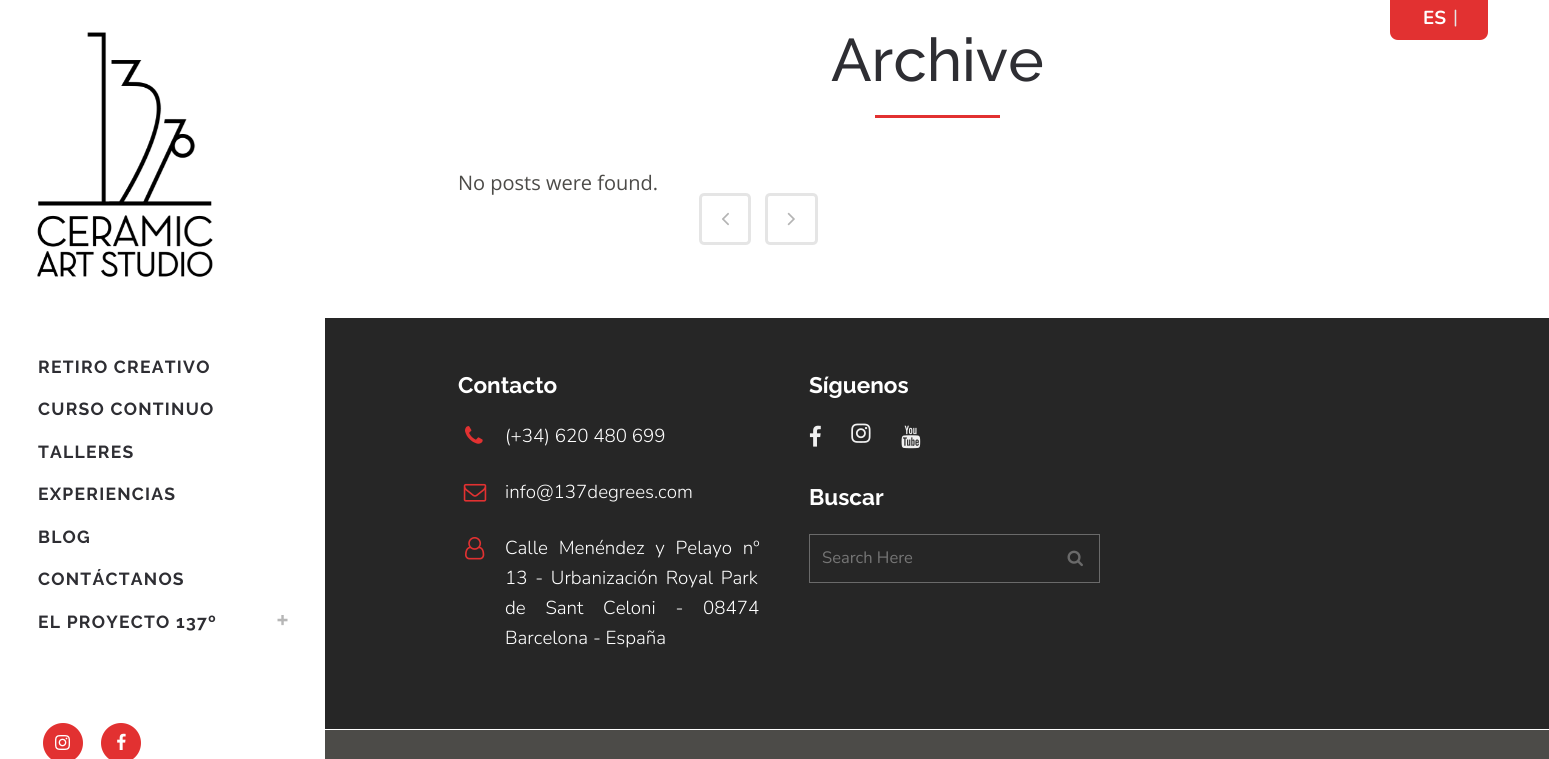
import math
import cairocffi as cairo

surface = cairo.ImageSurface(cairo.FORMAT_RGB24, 1549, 759)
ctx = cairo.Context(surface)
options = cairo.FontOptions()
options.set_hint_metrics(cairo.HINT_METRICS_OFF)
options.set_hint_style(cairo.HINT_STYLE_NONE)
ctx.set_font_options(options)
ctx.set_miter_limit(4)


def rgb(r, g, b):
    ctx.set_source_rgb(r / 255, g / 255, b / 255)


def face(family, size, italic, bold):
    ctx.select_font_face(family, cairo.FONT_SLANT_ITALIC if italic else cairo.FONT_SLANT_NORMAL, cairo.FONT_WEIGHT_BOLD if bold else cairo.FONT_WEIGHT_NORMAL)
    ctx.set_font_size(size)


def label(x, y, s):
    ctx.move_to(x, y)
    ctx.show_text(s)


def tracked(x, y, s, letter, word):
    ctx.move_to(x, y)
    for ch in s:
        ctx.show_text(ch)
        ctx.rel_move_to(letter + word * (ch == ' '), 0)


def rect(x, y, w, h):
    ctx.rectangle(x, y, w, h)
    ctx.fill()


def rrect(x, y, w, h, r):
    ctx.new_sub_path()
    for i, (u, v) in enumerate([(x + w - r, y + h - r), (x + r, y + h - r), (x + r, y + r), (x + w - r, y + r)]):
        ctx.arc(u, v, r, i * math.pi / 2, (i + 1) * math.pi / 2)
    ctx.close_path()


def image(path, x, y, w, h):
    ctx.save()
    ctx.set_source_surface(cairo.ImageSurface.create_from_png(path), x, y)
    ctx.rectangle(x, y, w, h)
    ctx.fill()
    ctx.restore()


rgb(255, 255, 255)
ctx.paint()
rgb(38, 38, 38)
rect(325, 318, 1224, 411)
face('Raleway', 22.5, 0, 1)
rgb(255, 255, 255)
label(458, 393, 'Contacto')
image('image0.png', 465, 426, 18, 18)
face('Nunito Light', 18.75, 0, 0)
label(505, 442, '(+34) 620 480 699')
image('image1.png', 463, 483, 24, 19)
label(505, 498, 'info@137degrees.com')
image('image2.png', 465, 537, 20, 23)
tracked(505, 554, 'Calle Menéndez y Pelayo nº', 0, 6)
tracked(505, 584, '13 - Urbanización Royal Park', 0, 3)
tracked(505, 614, 'de Sant Celoni - 08474', 0, 15)
label(505, 644, 'Barcelona - España')
rgb(226, 49, 49)
ctx.new_path()
ctx.move_to(1390, 0)
ctx.line_to(1488, 0)
ctx.line_to(1488, 32)
ctx.curve_to(1488, 36.5, 1484.5, 40, 1480, 40)
ctx.line_to(1398, 40)
ctx.curve_to(1393.5, 40, 1390, 36.5, 1390, 32)
ctx.close_path()
ctx.fill()
face('Nunito', 18.75, 0, 1)
rgb(255, 255, 255)
label(1423, 24, 'ES')
face('Nunito', 18.75, 0, 0)
rgb(229, 229, 229)
label(1453, 23, '|')
face('Raleway', 22.5, 0, 1)
rgb(255, 255, 255)
label(809, 393, 'Síguenos')
image('image3.png', 809, 425, 12, 22)
image('image4.png', 851, 423, 20, 20)
image('image5.png', 901, 425, 20, 24)
label(809, 505, 'Buscar')
ctx.rectangle(809.5, 534.5, 290, 48)
rgb(106, 106, 106)
ctx.set_line_width(1)
ctx.stroke()
face('Nunito', 16.5, 0, 0)
rgb(117, 117, 117)
label(822, 563, 'Search Here')
image('image6.png', 1067, 550, 16, 17)
rgb(76, 75, 72)
rect(325, 730, 1224, 29)
face('Raleway Medium', 60, 0, 0)
rgb(46, 46, 51)
label(831, 81, 'Archive')
rgb(226, 49, 49)
rect(875, 115, 125, 3)
face('Open Sans', 20, 0, 0)
rgb(76, 75, 72)
label(458, 190, 'No posts were found.')
rrect(700.5, 194.5, 49, 49, 3.5)
rgb(229, 229, 229)
ctx.set_line_width(3)
ctx.stroke()
image('image7.png', 722, 212, 7, 14)
rrect(766.5, 194.5, 50, 49, 3.5)
ctx.stroke()
image('image8.png', 787, 212, 8, 14)
image('image9.png', 37, 32, 176, 245)
face('Raleway', 17.5, 0, 1)
rgb(46, 46, 51)
tracked(38, 373, 'RETIRO CREATIVO', 1.25, 0)
tracked(38, 415, 'CURSO CONTINUO', 1.25, 0)
tracked(38, 458, 'TALLERES', 1.25, 0)
tracked(38, 500, 'EXPERIENCIAS', 1.25, 0)
tracked(38, 543, 'BLOG', 1.25, 0)
tracked(38, 585, 'CONTÁCTANOS', 1.25, 0)
tracked(38, 628, 'EL PROYECTO 137º', 1.25, 0)
image('image10.png', 277, 615, 11, 11)
rgb(226, 49, 49)
ctx.arc(63, 743, 20, 0, 2 * math.pi)
ctx.fill()
image('image11.png', 55, 735, 15, 15)
ctx.arc(121, 743, 20, 0, 2 * math.pi)
ctx.fill()
image('image12.png', 117, 733, 9, 17)
surface.write_to_png('render.png')
